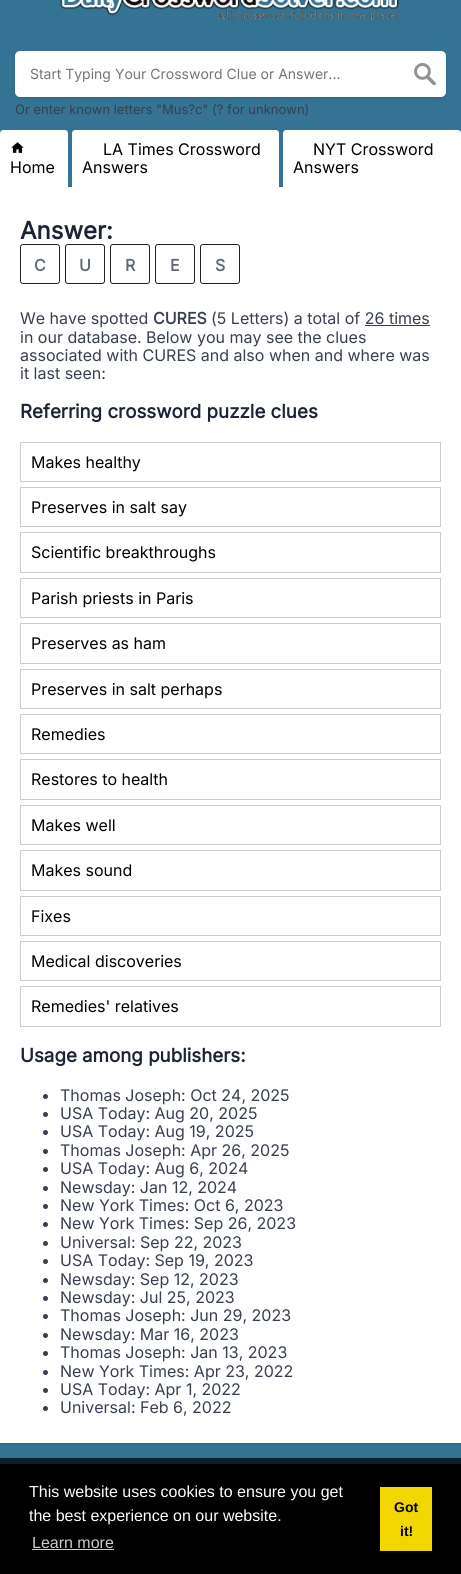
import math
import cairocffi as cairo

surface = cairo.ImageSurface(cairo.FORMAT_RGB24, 461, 1574)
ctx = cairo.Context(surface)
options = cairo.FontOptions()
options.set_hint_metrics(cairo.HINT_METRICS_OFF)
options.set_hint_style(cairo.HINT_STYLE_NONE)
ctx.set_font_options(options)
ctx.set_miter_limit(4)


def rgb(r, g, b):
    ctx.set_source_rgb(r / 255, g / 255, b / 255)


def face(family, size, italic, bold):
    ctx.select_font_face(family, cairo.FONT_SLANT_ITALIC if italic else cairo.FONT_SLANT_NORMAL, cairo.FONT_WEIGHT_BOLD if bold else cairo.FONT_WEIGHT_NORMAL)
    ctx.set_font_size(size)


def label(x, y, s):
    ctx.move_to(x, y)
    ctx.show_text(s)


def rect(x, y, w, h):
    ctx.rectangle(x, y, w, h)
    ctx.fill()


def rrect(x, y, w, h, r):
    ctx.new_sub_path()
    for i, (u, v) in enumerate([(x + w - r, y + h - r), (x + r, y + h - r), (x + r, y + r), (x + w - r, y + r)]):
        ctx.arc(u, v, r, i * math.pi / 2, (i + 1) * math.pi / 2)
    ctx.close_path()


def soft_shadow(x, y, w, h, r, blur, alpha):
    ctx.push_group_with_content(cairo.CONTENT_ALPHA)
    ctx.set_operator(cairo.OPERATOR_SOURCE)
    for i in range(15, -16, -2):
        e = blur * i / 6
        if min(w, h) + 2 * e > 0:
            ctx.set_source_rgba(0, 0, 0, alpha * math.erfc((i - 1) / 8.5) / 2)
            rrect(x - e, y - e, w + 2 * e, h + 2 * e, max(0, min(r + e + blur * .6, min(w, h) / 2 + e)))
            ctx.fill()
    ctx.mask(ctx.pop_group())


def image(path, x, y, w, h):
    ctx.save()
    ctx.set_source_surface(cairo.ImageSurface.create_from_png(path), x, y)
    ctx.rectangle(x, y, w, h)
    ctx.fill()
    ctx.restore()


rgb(52, 115, 147)
ctx.paint()
image('image0.png', 60, 0, 339, 21)
rgb(0, 0, 0)
soft_shadow(15, 52, 431, 46, 5, 2, 0.1)
rgb(255, 255, 255)
rrect(15, 51, 431, 46, 5)
ctx.fill()
face('Inter', 14, 0, 0)
rgb(117, 117, 117)
label(30, 79, 'Start Typing Your Crossword Clue or Answer...')
image('image1.png', 414, 63, 22, 22)
face('Inter', 13, 0, 0)
rgb(56, 63, 78)
label(15, 114, 'Or enter known letters "Mus?c" (? for unknown)')
rgb(0, 0, 0)
soft_shadow(0, 188, 461, 1256, 0, 2, 0.1)
rgb(255, 255, 255)
ctx.new_path()
ctx.move_to(3, 130)
ctx.line_to(65, 130)
ctx.curve_to(66.5, 130, 68, 131.5, 68, 133)
ctx.line_to(68, 187)
ctx.line_to(0, 187)
ctx.line_to(0, 133)
ctx.curve_to(0, 131.5, 1.5, 130, 3, 130)
ctx.close_path()
ctx.fill()
image('image2.png', 11, 142, 13, 11)
face('Inter', 16, 0, 0)
rgb(0, 0, 0)
label(10, 173, 'Home')
rgb(255, 255, 255)
ctx.new_path()
ctx.move_to(75, 130)
ctx.line_to(276, 130)
ctx.curve_to(277.5, 130, 279, 131.5, 279, 133)
ctx.line_to(279, 187)
ctx.line_to(72, 187)
ctx.line_to(72, 133)
ctx.curve_to(72, 131.5, 73.5, 130, 75, 130)
ctx.close_path()
ctx.fill()
rgb(0, 0, 0)
label(103, 155, 'LA Times Crossword')
label(82, 173, 'Answers')
rgb(255, 255, 255)
ctx.new_path()
ctx.move_to(286, 130)
ctx.line_to(458, 130)
ctx.curve_to(459.5, 130, 461, 131.5, 461, 133)
ctx.line_to(461, 187)
ctx.line_to(283, 187)
ctx.line_to(283, 133)
ctx.curve_to(283, 131.5, 284.5, 130, 286, 130)
ctx.close_path()
ctx.fill()
rgb(0, 0, 0)
label(313, 155, 'NYT Crossword')
label(293, 173, 'Answers')
rgb(255, 255, 255)
rect(0, 187, 461, 1256)
face('Inter', 24, 0, 1)
rgb(28, 35, 52)
label(20, 239, 'Answer:')
rrect(20.5, 244.5, 39, 39, 2.5)
rgb(33, 35, 39)
ctx.set_line_width(1)
ctx.stroke()
face('Inter', 16, 0, 1)
rgb(96, 105, 113)
label(34, 271, 'C')
rrect(65.5, 244.5, 39, 39, 2.5)
rgb(33, 35, 39)
ctx.stroke()
rgb(96, 105, 113)
label(79, 271, 'U')
rrect(110.5, 244.5, 39, 39, 2.5)
rgb(33, 35, 39)
ctx.stroke()
rgb(96, 105, 113)
label(125, 271, 'R')
rrect(155.5, 244.5, 39, 39, 2.5)
rgb(33, 35, 39)
ctx.stroke()
rgb(96, 105, 113)
label(170, 271, 'E')
rrect(200.5, 244.5, 39, 39, 2.5)
rgb(33, 35, 39)
ctx.stroke()
rgb(96, 105, 113)
label(215, 271, 'S')
face('Inter', 16, 0, 0)
rgb(56, 63, 78)
label(20, 324, 'We have spotted')
face('Inter', 16, 0, 1)
label(153, 324, 'CURES')
face('Inter', 16, 0, 0)
label(211, 324, '(5 Letters) a total of 26 times')
rect(365, 325, 65, 1)
label(20, 343, 'in our database. Below you may see the clues')
label(20, 361, 'associated with CURES and also when and where was')
label(20, 379, 'it last seen:')
face('Inter', 18.75, 0, 1)
rgb(28, 35, 52)
label(20, 418, 'Referring crossword puzzle clues')
ctx.rectangle(20.5, 442.5, 420, 39)
rgb(204, 204, 204)
ctx.stroke()
face('Inter', 16, 0, 0)
rgb(0, 0, 0)
label(31, 468, 'Makes healthy')
ctx.rectangle(20.5, 487.5, 420, 39)
rgb(204, 204, 204)
ctx.stroke()
rgb(0, 0, 0)
label(31, 513, 'Preserves in salt say')
ctx.rectangle(20.5, 532.5, 420, 40)
rgb(204, 204, 204)
ctx.stroke()
rgb(0, 0, 0)
label(31, 558, 'Scientific breakthroughs')
ctx.rectangle(20.5, 578.5, 420, 39)
rgb(204, 204, 204)
ctx.stroke()
rgb(0, 0, 0)
label(31, 604, 'Parish priests in Paris')
ctx.rectangle(20.5, 623.5, 420, 40)
rgb(204, 204, 204)
ctx.stroke()
rgb(0, 0, 0)
label(31, 649, 'Preserves as ham')
ctx.rectangle(20.5, 669.5, 420, 39)
rgb(204, 204, 204)
ctx.stroke()
rgb(0, 0, 0)
label(31, 695, 'Preserves in salt perhaps')
ctx.rectangle(20.5, 714.5, 420, 39)
rgb(204, 204, 204)
ctx.stroke()
rgb(0, 0, 0)
label(31, 740, 'Remedies')
ctx.rectangle(20.5, 759.5, 420, 40)
rgb(204, 204, 204)
ctx.stroke()
rgb(0, 0, 0)
label(31, 785, 'Restores to health')
ctx.rectangle(20.5, 805.5, 420, 39)
rgb(204, 204, 204)
ctx.stroke()
rgb(0, 0, 0)
label(31, 831, 'Makes well')
ctx.rectangle(20.5, 850.5, 420, 40)
rgb(204, 204, 204)
ctx.stroke()
rgb(0, 0, 0)
label(31, 876, 'Makes sound')
ctx.rectangle(20.5, 896.5, 420, 39)
rgb(204, 204, 204)
ctx.stroke()
rgb(0, 0, 0)
label(31, 922, 'Fixes')
ctx.rectangle(20.5, 941.5, 420, 39)
rgb(204, 204, 204)
ctx.stroke()
rgb(0, 0, 0)
label(31, 967, 'Medical discoveries')
ctx.rectangle(20.5, 986.5, 420, 40)
rgb(204, 204, 204)
ctx.stroke()
rgb(0, 0, 0)
label(31, 1012, 'Remedies\' relatives')
face('Inter', 18.75, 0, 1)
rgb(28, 35, 52)
label(20, 1062, 'Usage among publishers:')
rgb(56, 63, 78)
ctx.new_path()
ctx.arc(45.5, 1096.5, 2.5, 0, 2 * math.pi)
ctx.fill()
face('Inter', 16, 0, 0)
label(60, 1101, 'Thomas Joseph: Oct 24, 2025')
ctx.new_path()
ctx.arc(45.5, 1114.5, 2.5, 0, 2 * math.pi)
ctx.fill()
label(60, 1119, 'USA Today: Aug 20, 2025')
ctx.new_path()
ctx.arc(45.5, 1132.5, 2.5, 0, 2 * math.pi)
ctx.fill()
label(60, 1137, 'USA Today: Aug 19, 2025')
ctx.new_path()
ctx.arc(45.5, 1151.5, 2.5, 0, 2 * math.pi)
ctx.fill()
label(60, 1156, 'Thomas Joseph: Apr 26, 2025')
ctx.new_path()
ctx.arc(45.5, 1169.5, 2.5, 0, 2 * math.pi)
ctx.fill()
label(60, 1174, 'USA Today: Aug 6, 2024')
ctx.new_path()
ctx.arc(45.5, 1188.5, 2.5, 0, 2 * math.pi)
ctx.fill()
label(60, 1193, 'Newsday: Jan 12, 2024')
ctx.new_path()
ctx.arc(45.5, 1206.5, 2.5, 0, 2 * math.pi)
ctx.fill()
label(60, 1211, 'New York Times: Oct 6, 2023')
ctx.new_path()
ctx.arc(45.5, 1224.5, 2.5, 0, 2 * math.pi)
ctx.fill()
label(60, 1229, 'New York Times: Sep 26, 2023')
ctx.new_path()
ctx.arc(45.5, 1243.5, 2.5, 0, 2 * math.pi)
ctx.fill()
label(60, 1248, 'Universal: Sep 22, 2023')
ctx.new_path()
ctx.arc(45.5, 1261.5, 2.5, 0, 2 * math.pi)
ctx.fill()
label(60, 1266, 'USA Today: Sep 19, 2023')
ctx.new_path()
ctx.arc(45.5, 1280.5, 2.5, 0, 2 * math.pi)
ctx.fill()
label(60, 1285, 'Newsday: Sep 12, 2023')
ctx.new_path()
ctx.arc(45.5, 1298.5, 2.5, 0, 2 * math.pi)
ctx.fill()
label(60, 1303, 'Newsday: Jul 25, 2023')
ctx.new_path()
ctx.arc(45.5, 1316.5, 2.5, 0, 2 * math.pi)
ctx.fill()
label(60, 1321, 'Thomas Joseph: Jun 29, 2023')
ctx.new_path()
ctx.arc(45.5, 1335.5, 2.5, 0, 2 * math.pi)
ctx.fill()
label(60, 1340, 'Newsday: Mar 16, 2023')
ctx.new_path()
ctx.arc(45.5, 1353.5, 2.5, 0, 2 * math.pi)
ctx.fill()
label(60, 1358, 'Thomas Joseph: Jan 13, 2023')
ctx.new_path()
ctx.arc(45.5, 1372.5, 2.5, 0, 2 * math.pi)
ctx.fill()
label(60, 1377, 'New York Times: Apr 23, 2022')
ctx.new_path()
ctx.arc(45.5, 1390.5, 2.5, 0, 2 * math.pi)
ctx.fill()
label(60, 1395, 'USA Today: Apr 1, 2022')
ctx.new_path()
ctx.arc(45.5, 1408.5, 2.5, 0, 2 * math.pi)
ctx.fill()
label(60, 1413, 'Universal: Feb 6, 2022')
rgb(15, 32, 41)
rect(0, 1458, 461, 6)
rgb(0, 0, 0)
rect(0, 1464, 461, 110)
face('Liberation Sans', 16, 0, 0)
rgb(255, 255, 255)
label(29, 1497, 'This website uses cookies to ensure you get')
label(29, 1521, 'the best experience on our website.')
rgb(204, 204, 204)
label(32, 1548, 'Learn more')
rect(32, 1549, 82, 1)
rgb(241, 214, 0)
rect(380, 1487, 52, 64)
face('Liberation Sans', 14, 0, 1)
rgb(0, 0, 0)
label(394, 1512, 'Got')
label(400, 1536, 'it!')
surface.write_to_png('render.png')
